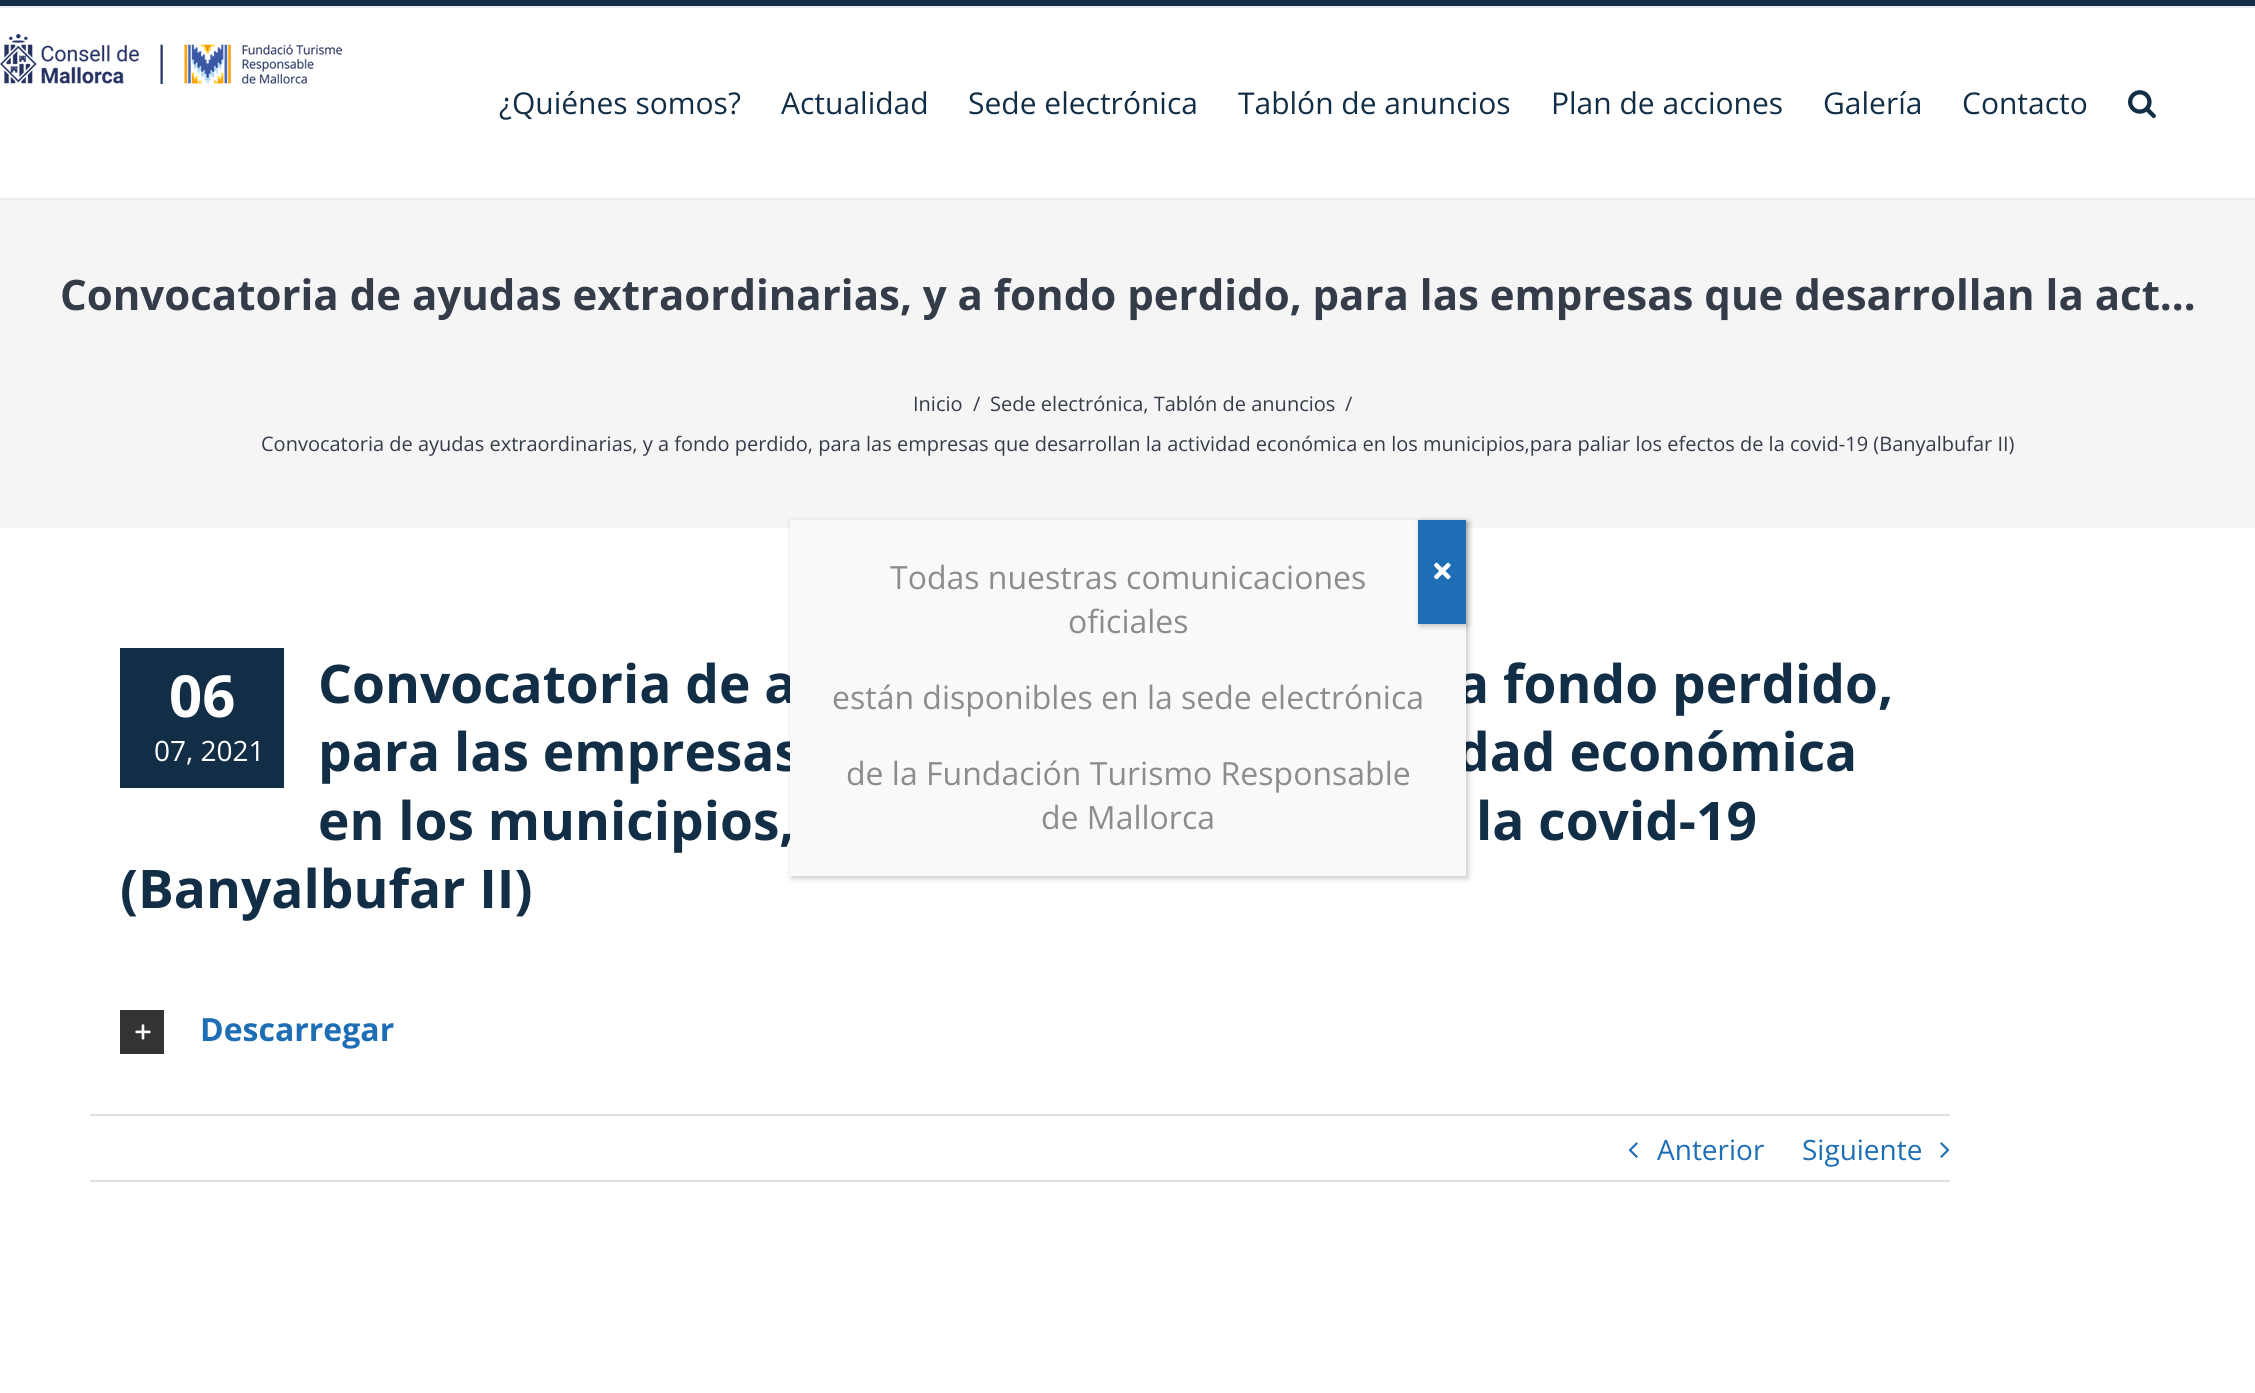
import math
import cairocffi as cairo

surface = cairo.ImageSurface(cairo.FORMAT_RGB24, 2255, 1393)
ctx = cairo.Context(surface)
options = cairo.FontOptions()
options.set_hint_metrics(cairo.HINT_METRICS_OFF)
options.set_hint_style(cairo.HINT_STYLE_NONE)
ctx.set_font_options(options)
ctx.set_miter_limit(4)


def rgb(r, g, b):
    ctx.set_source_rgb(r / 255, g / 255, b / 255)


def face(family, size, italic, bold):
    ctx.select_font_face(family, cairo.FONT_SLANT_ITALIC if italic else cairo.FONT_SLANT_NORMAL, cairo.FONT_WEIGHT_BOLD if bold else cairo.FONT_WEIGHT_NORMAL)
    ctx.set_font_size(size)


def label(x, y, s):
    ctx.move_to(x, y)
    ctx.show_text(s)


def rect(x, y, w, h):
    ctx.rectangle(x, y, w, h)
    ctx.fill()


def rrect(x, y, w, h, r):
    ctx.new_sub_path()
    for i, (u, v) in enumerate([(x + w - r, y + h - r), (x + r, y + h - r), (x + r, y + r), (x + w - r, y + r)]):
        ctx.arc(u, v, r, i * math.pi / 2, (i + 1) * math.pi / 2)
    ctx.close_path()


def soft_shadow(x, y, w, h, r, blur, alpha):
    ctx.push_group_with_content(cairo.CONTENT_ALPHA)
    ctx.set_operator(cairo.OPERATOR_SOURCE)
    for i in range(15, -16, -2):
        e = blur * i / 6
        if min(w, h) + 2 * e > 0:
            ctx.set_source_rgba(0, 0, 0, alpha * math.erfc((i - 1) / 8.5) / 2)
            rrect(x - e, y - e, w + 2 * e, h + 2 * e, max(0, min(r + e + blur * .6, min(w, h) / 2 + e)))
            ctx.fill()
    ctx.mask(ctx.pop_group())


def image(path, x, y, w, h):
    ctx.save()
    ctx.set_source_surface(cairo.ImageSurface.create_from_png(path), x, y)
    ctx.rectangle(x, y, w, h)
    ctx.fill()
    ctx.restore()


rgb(255, 255, 255)
ctx.paint()
rgb(18, 46, 70)
rect(0, 0, 2255, 6)
rgb(235, 235, 235)
rect(0, 6, 2255, 2)
rect(0, 198, 2255, 2)
image('image0.png', 0, 34, 342, 50)
face('Open Sans', 30, 0, 0)
rgb(18, 46, 70)
label(499, 114, '¿Quiénes somos?')
label(781, 114, 'Actualidad')
label(968, 114, 'Sede electrónica')
label(1238, 114, 'Tablón de anuncios')
label(1551, 114, 'Plan de acciones')
label(1823, 114, 'Galería')
label(1962, 114, 'Contacto')
image('image1.png', 2128, 90, 28, 28)
rgb(245, 245, 245)
rect(0, 200, 2255, 328)
face('Open Sans', 42, 0, 1)
rgb(52, 59, 73)
label(60, 310, 'Convocatoria de ayudas extraordinarias, y a fondo perdido, para las empresas que desarrollan la act…')
face('Open Sans', 20, 0, 0)
label(913, 411, 'Inicio')
label(973, 411, '/')
label(990, 411, 'Sede electrónica, Tablón de anuncios')
label(1345, 411, '/')
label(261, 451, 'Convocatoria de ayudas extraordinarias, y a fondo perdido, para las empresas que desarrollan la actividad económica en los municipios,para paliar los efectos de la covid-19 (Banyalbufar II)')
face('Open Sans', 53.25, 0, 1)
rgb(18, 46, 70)
label(318, 703, 'Convocatoria de a')
label(1457, 703, 'a fondo perdido,')
label(318, 771, 'para las empresas')
label(1456, 771, 'dad económica')
label(318, 840, 'en los municipios,')
label(1476, 840, 'la covid-19')
label(120, 908, '(Banyalbufar II)')
rect(120, 648, 164, 140)
face('Open Sans', 58, 0, 1)
rgb(255, 255, 255)
label(169, 717, '06')
face('Open Sans', 28, 0, 0)
label(154, 761, '07, 2021')
rgb(51, 51, 51)
rect(120, 1010, 44, 44)
image('image2.png', 135, 1024, 16, 16)
face('Open Sans', 32, 0, 1)
rgb(30, 110, 181)
label(200, 1041, 'Descarregar')
rgb(224, 222, 222)
rect(90, 1114, 1860, 2)
rect(90, 1180, 1860, 2)
image('image3.png', 1628, 1142, 10, 16)
face('Open Sans', 28, 0, 0)
rgb(30, 110, 181)
label(1657, 1160, 'Anterior')
label(1802, 1160, 'Siguiente')
image('image4.png', 1940, 1142, 10, 16)
rgb(2, 2, 2)
soft_shadow(792, 522, 676, 356, 0, 3, 0.23)
rgb(249, 249, 249)
rect(790, 520, 676, 356)
face('Open Sans', 32, 0, 0)
rgb(140, 140, 140)
label(890, 589, 'Todas nuestras comunicaciones')
label(1068, 633, 'oficiales')
label(832, 709, 'están disponibles en la sede electrónica')
label(846, 785, 'de la Fundación Turismo Responsable')
label(1041, 829, 'de Mallorca')
rgb(2, 2, 2)
soft_shadow(1420, 522, 48, 104, 0, 3, 0.23)
rgb(30, 110, 181)
rect(1418, 520, 48, 104)
image('image5.png', 1434, 562, 17, 18)
surface.write_to_png('render.png')
